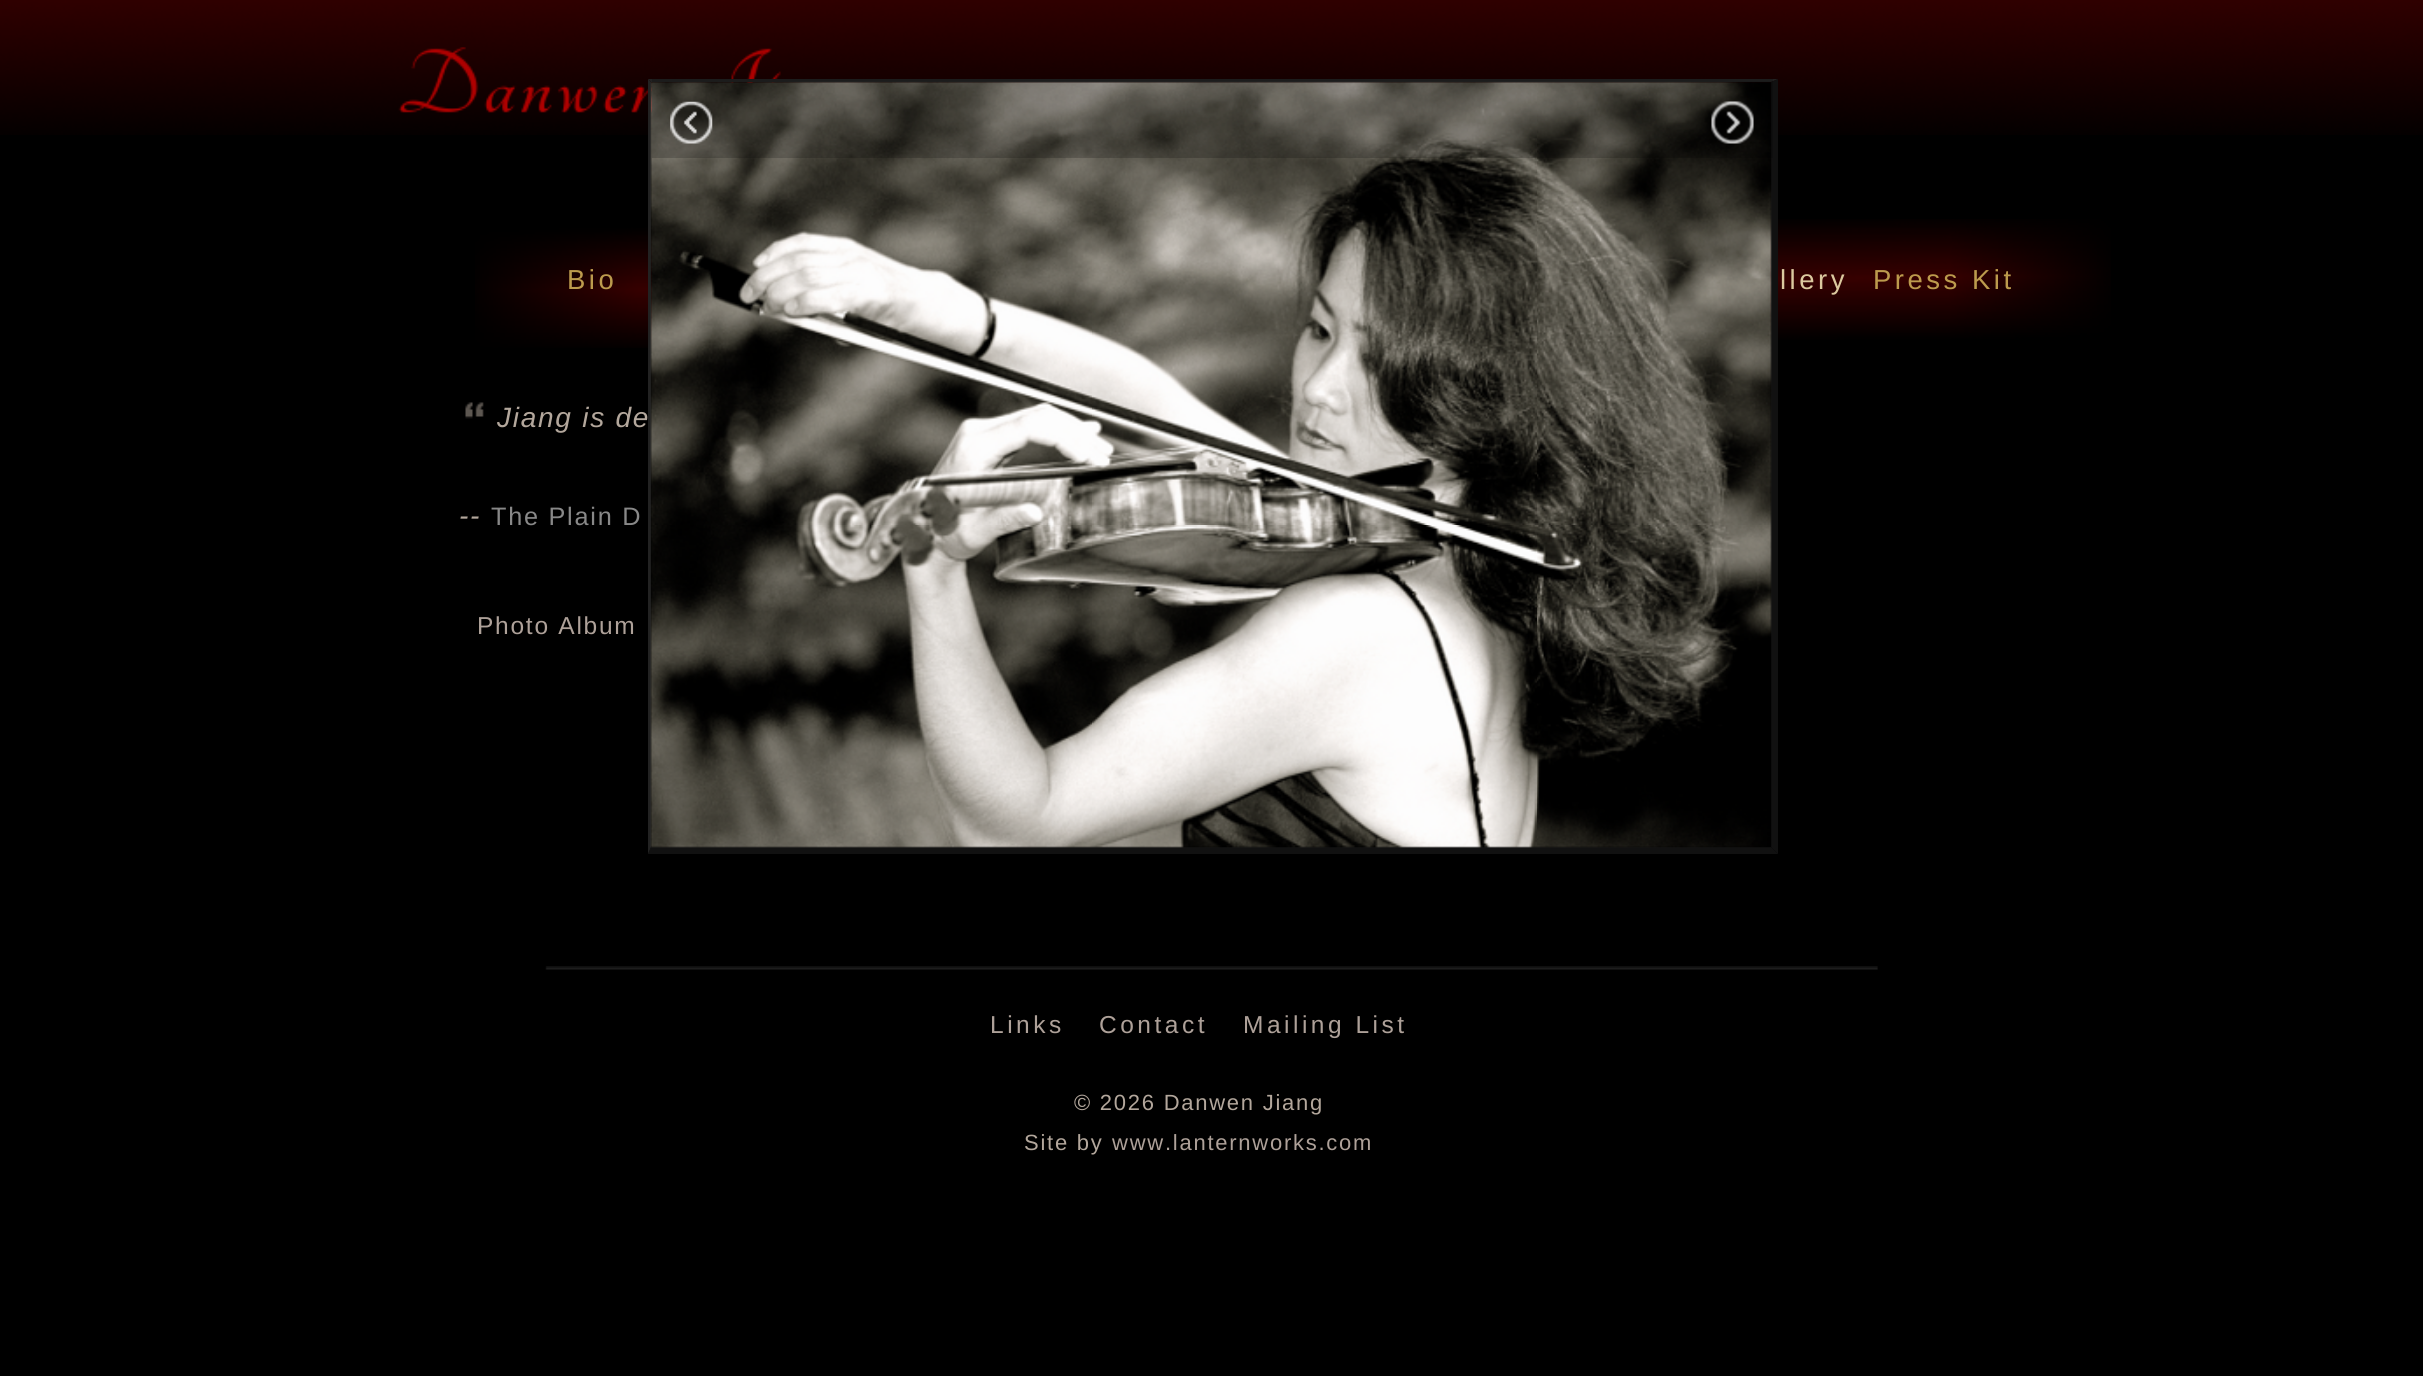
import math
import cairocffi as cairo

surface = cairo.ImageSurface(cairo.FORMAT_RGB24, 2423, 1376)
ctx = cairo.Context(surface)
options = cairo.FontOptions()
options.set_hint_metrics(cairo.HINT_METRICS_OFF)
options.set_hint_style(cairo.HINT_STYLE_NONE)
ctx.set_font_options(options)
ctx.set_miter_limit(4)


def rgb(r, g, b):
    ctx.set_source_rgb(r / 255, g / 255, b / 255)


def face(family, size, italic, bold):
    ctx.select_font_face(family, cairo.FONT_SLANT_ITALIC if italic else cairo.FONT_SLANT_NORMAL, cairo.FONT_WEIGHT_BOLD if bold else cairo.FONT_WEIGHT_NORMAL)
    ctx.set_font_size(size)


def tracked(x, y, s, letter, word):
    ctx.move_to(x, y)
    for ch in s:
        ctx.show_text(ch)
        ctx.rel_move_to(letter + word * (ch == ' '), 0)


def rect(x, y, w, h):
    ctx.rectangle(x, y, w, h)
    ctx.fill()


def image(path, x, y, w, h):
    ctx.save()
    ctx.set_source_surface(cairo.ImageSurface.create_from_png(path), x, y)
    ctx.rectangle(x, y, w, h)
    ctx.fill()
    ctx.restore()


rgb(0, 0, 0)
ctx.paint()
image('image0.png', 0, 0, 2423, 135)
image('image1.png', 398, 47, 383, 66)
image('image2.png', 475, 219, 1636, 129)
face('Liberation Sans', 27.5, 0, 0)
rgb(188, 155, 77)
tracked(567, 289, 'Bio', 3.5, 0)
rgb(219, 201, 159)
tracked(1780, 289, 'llery', 3.5, 0)
rgb(188, 155, 77)
tracked(1873, 289, 'Press Kit', 3.5, 0)
image('image3.png', 465, 402, 19, 17)
face('Liberation Sans', 28, 1, 0)
rgb(179, 167, 156)
tracked(497, 427, 'Jiang is de', 1.75, 0)
tracked(459, 525, '--', 1.75, 0)
face('Liberation Sans', 25.25, 0, 0)
rgb(136, 136, 136)
tracked(491, 525, 'The Plain D', 1.75, 0)
face('Liberation Sans', 24.5, 0, 0)
rgb(174, 161, 153)
tracked(477, 634, 'Photo Album', 1.75, 0)
rgb(34, 34, 34)
ctx.new_path()
ctx.move_to(648, 79)
ctx.line_to(1778, 79)
ctx.line_to(1771, 82)
ctx.line_to(651, 82)
ctx.close_path()
ctx.fill()
rgb(17, 17, 17)
ctx.new_path()
ctx.move_to(1778, 79)
ctx.line_to(1778, 854)
ctx.line_to(1771, 847)
ctx.line_to(1771, 82)
ctx.close_path()
ctx.fill()
ctx.new_path()
ctx.move_to(1778, 854)
ctx.line_to(648, 854)
ctx.line_to(651, 847)
ctx.line_to(1771, 847)
ctx.close_path()
ctx.fill()
rgb(34, 34, 34)
ctx.new_path()
ctx.move_to(648, 854)
ctx.line_to(648, 79)
ctx.line_to(651, 82)
ctx.line_to(651, 847)
ctx.close_path()
ctx.fill()
image('image6.png', 650, 81, 1122, 767)
ctx.set_source_rgba(0, 0, 0, 0.19)
rect(652, 79, 1121, 79)
image('image4.png', 670, 101, 43, 43)
image('image5.png', 1711, 101, 43, 43)
image('image7.png', 545, 966, 1333, 4)
rgb(174, 161, 153)
tracked(990, 1033, 'Links', 3.5, 0)
tracked(1099, 1033, 'Contact', 3.5, 0)
tracked(1243, 1033, 'Mailing List', 3.5, 0)
face('Liberation Sans', 22, 0, 0)
rgb(179, 167, 156)
tracked(1074, 1110, '© 2026 Danwen Jiang', 1.75, 0)
tracked(1024, 1150, 'Site by', 1.75, 0)
rgb(174, 161, 153)
tracked(1112, 1150, 'www.lanternworks.com', 1.75, 0)
surface.write_to_png('render.png')
